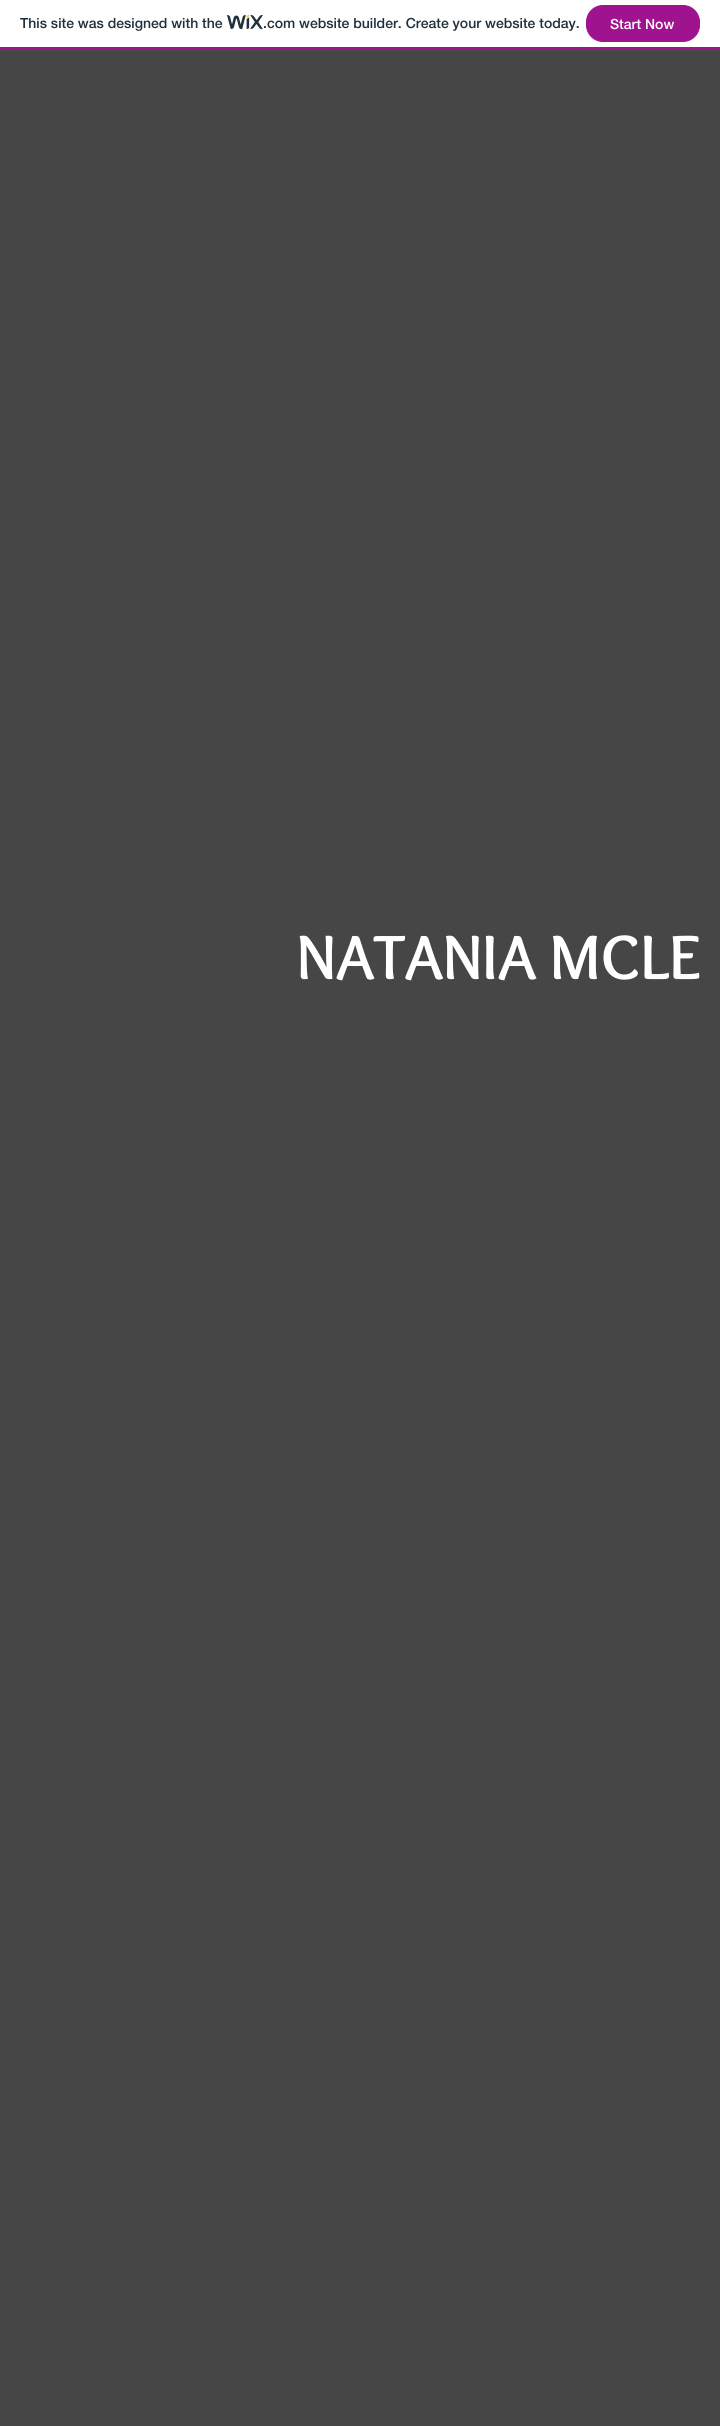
import math
import cairocffi as cairo

surface = cairo.ImageSurface(cairo.FORMAT_RGB24, 720, 2426)
ctx = cairo.Context(surface)
options = cairo.FontOptions()
options.set_hint_metrics(cairo.HINT_METRICS_OFF)
options.set_hint_style(cairo.HINT_STYLE_NONE)
ctx.set_font_options(options)
ctx.set_miter_limit(4)


def rgb(r, g, b):
    ctx.set_source_rgb(r / 255, g / 255, b / 255)


def face(family, size, italic, bold):
    ctx.select_font_face(family, cairo.FONT_SLANT_ITALIC if italic else cairo.FONT_SLANT_NORMAL, cairo.FONT_WEIGHT_BOLD if bold else cairo.FONT_WEIGHT_NORMAL)
    ctx.set_font_size(size)


def label(x, y, s):
    ctx.move_to(x, y)
    ctx.show_text(s)


def rect(x, y, w, h):
    ctx.rectangle(x, y, w, h)
    ctx.fill()


def rrect(x, y, w, h, r):
    ctx.new_sub_path()
    for i, (u, v) in enumerate([(x + w - r, y + h - r), (x + r, y + h - r), (x + r, y + r), (x + w - r, y + r)]):
        ctx.arc(u, v, r, i * math.pi / 2, (i + 1) * math.pi / 2)
    ctx.close_path()


def image(path, x, y, w, h):
    ctx.save()
    ctx.set_source_surface(cairo.ImageSurface.create_from_png(path), x, y)
    ctx.rectangle(x, y, w, h)
    ctx.fill()
    ctx.restore()


rgb(255, 255, 255)
ctx.paint()
rgb(160, 19, 142)
rect(0, 47, 720, 3)
face('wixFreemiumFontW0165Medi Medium', 14, 0, 0)
rgb(32, 48, 60)
label(20, 28, 'This site was designed with the')
image('image0.png', 227, 15, 36, 15)
label(263, 28, '.com website builder. Create your website today.')
rgb(160, 19, 142)
rrect(586.5, 5.5, 113, 36, 16.5)
ctx.fill_preserve()
ctx.set_line_width(1)
ctx.stroke()
rgb(255, 255, 255)
label(610, 29, 'Start Now')
rgb(70, 70, 70)
rect(0, 50, 720, 2376)
face('Overlock', 65, 0, 1)
rgb(255, 255, 255)
label(296, 979, 'NATANIA MCLE')
surface.write_to_png('render.png')
